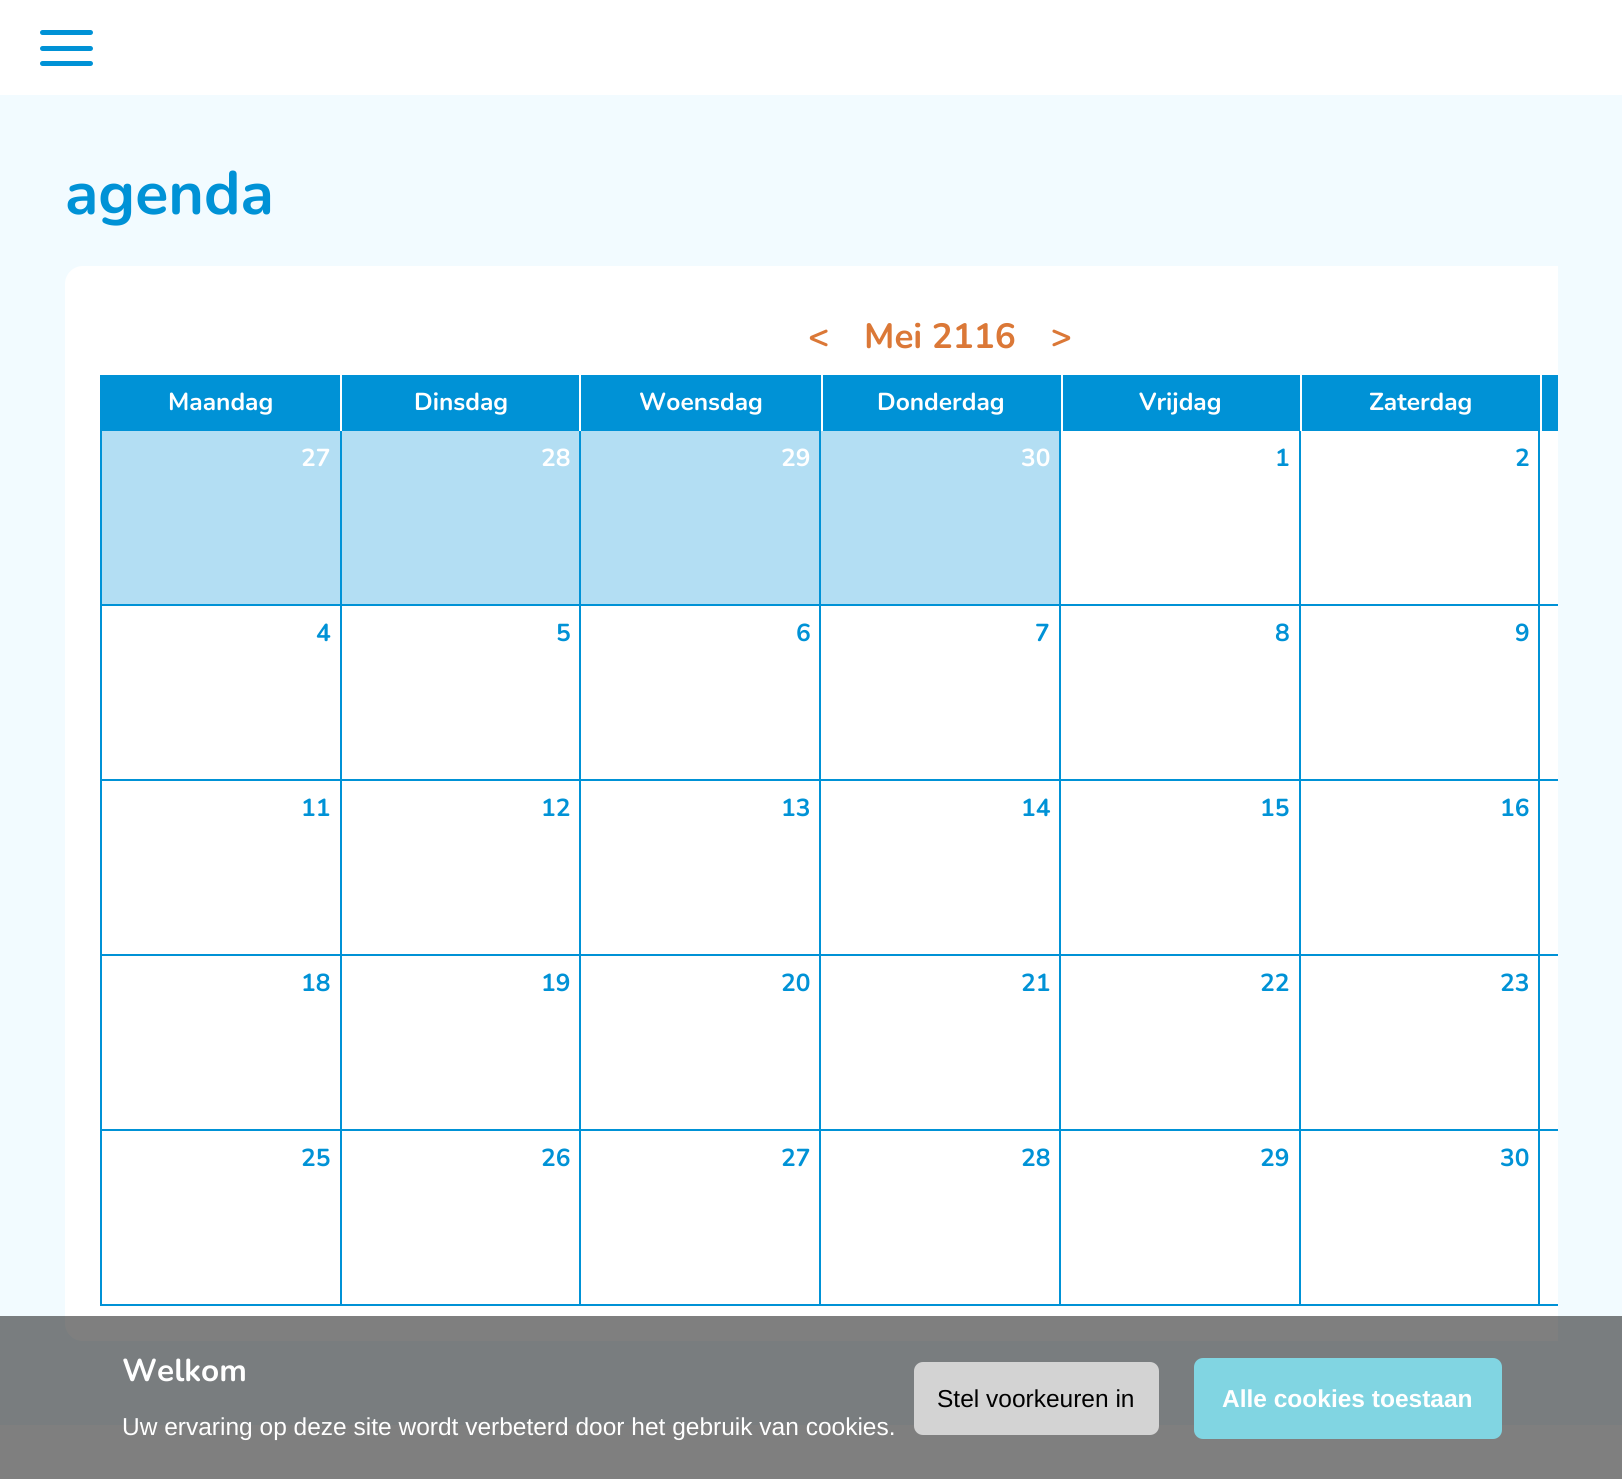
import math
import cairocffi as cairo

surface = cairo.ImageSurface(cairo.FORMAT_RGB24, 1622, 1479)
ctx = cairo.Context(surface)
options = cairo.FontOptions()
options.set_hint_metrics(cairo.HINT_METRICS_OFF)
options.set_hint_style(cairo.HINT_STYLE_NONE)
ctx.set_font_options(options)
ctx.set_miter_limit(4)


def rgb(r, g, b):
    ctx.set_source_rgb(r / 255, g / 255, b / 255)


def face(family, size, italic, bold):
    ctx.select_font_face(family, cairo.FONT_SLANT_ITALIC if italic else cairo.FONT_SLANT_NORMAL, cairo.FONT_WEIGHT_BOLD if bold else cairo.FONT_WEIGHT_NORMAL)
    ctx.set_font_size(size)


def label(x, y, s):
    ctx.move_to(x, y)
    ctx.show_text(s)


def rect(x, y, w, h):
    ctx.rectangle(x, y, w, h)
    ctx.fill()


def rrect(x, y, w, h, r):
    ctx.new_sub_path()
    for i, (u, v) in enumerate([(x + w - r, y + h - r), (x + r, y + h - r), (x + r, y + r), (x + w - r, y + r)]):
        ctx.arc(u, v, r, i * math.pi / 2, (i + 1) * math.pi / 2)
    ctx.close_path()


rgb(242, 251, 255)
ctx.paint()
rgb(255, 255, 255)
rect(0, 0, 1622, 95)
rgb(0, 146, 214)
rrect(40, 30, 53, 5, 2.5)
ctx.fill()
rrect(40, 46, 53, 5, 2.5)
ctx.fill()
rrect(40, 61, 53, 5, 2.5)
ctx.fill()
face('Nunito', 61, 0, 1)
label(65, 214, 'agenda')
rgb(255, 255, 255)
ctx.new_path()
ctx.move_to(83, 266)
ctx.line_to(1558, 266)
ctx.line_to(1558, 1341)
ctx.line_to(83, 1341)
ctx.curve_to(73, 1341, 65, 1333, 65, 1323)
ctx.line_to(65, 284)
ctx.curve_to(65, 274, 73, 266, 83, 266)
ctx.close_path()
ctx.fill()
face('Nunito', 35, 0, 1)
rgb(219, 120, 55)
label(808, 348, '<')
label(864, 348, 'Mei 2116')
label(1051, 348, '>')
rgb(0, 146, 214)
rect(100, 375, 1458, 56)
face('Nunito', 24.5, 0, 1)
rgb(255, 255, 255)
label(168, 410, 'Maandag')
rect(340, 375, 2, 56)
label(414, 410, 'Dinsdag')
rect(579, 375, 2, 56)
label(639, 410, 'Woensdag')
rect(821, 375, 2, 56)
label(877, 410, 'Donderdag')
rect(1061, 375, 2, 56)
label(1139, 410, 'Vrijdag')
rect(1300, 375, 2, 56)
label(1369, 410, 'Zaterdag')
rect(1540, 375, 2, 56)
rgb(179, 222, 243)
rect(102, 431, 238, 173)
rgb(0, 146, 214)
rect(100, 604, 1458, 2)
rect(100, 431, 2, 175)
rgb(255, 255, 255)
label(301, 466, '27')
rgb(179, 222, 243)
rect(342, 431, 237, 173)
rgb(0, 146, 214)
rect(340, 431, 2, 175)
rgb(255, 255, 255)
label(541, 466, '28')
rgb(179, 222, 243)
rect(581, 431, 238, 173)
rgb(0, 146, 214)
rect(579, 431, 2, 175)
rgb(255, 255, 255)
label(781, 466, '29')
rgb(179, 222, 243)
rect(821, 431, 238, 173)
rgb(0, 146, 214)
rect(819, 431, 2, 175)
rgb(255, 255, 255)
label(1021, 466, '30')
rgb(0, 146, 214)
rect(1059, 431, 2, 175)
label(1275, 466, '1')
rect(1299, 431, 2, 175)
label(1515, 466, '2')
rect(1538, 431, 2, 175)
rect(100, 779, 1458, 2)
rect(100, 606, 2, 175)
label(316, 641, '4')
rect(340, 606, 2, 175)
label(556, 641, '5')
rect(579, 606, 2, 175)
label(796, 641, '6')
rect(819, 606, 2, 175)
label(1035, 641, '7')
rect(1059, 606, 2, 175)
label(1275, 641, '8')
rect(1299, 606, 2, 175)
label(1515, 641, '9')
rect(1538, 606, 2, 175)
rect(100, 954, 1458, 2)
rect(100, 781, 2, 175)
label(301, 816, '11')
rect(340, 781, 2, 175)
label(541, 816, '12')
rect(579, 781, 2, 175)
label(781, 816, '13')
rect(819, 781, 2, 175)
label(1021, 816, '14')
rect(1059, 781, 2, 175)
label(1260, 816, '15')
rect(1299, 781, 2, 175)
label(1500, 816, '16')
rect(1538, 781, 2, 175)
rect(100, 1129, 1458, 2)
rect(100, 956, 2, 175)
label(301, 991, '18')
rect(340, 956, 2, 175)
label(541, 991, '19')
rect(579, 956, 2, 175)
label(781, 991, '20')
rect(819, 956, 2, 175)
label(1021, 991, '21')
rect(1059, 956, 2, 175)
label(1260, 991, '22')
rect(1299, 956, 2, 175)
label(1500, 991, '23')
rect(1538, 956, 2, 175)
rect(100, 1304, 1458, 2)
rect(100, 1131, 2, 175)
label(301, 1166, '25')
rect(340, 1131, 2, 175)
label(541, 1166, '26')
rect(579, 1131, 2, 175)
label(781, 1166, '27')
rect(819, 1131, 2, 175)
label(1021, 1166, '28')
rect(1059, 1131, 2, 175)
label(1260, 1166, '29')
rect(1299, 1131, 2, 175)
label(1500, 1166, '30')
rect(1538, 1131, 2, 175)
rgb(255, 255, 255)
rect(0, 1425, 1622, 54)
ctx.set_source_rgba(0, 0, 0, 0.5)
rect(0, 1316, 1622, 163)
face('Nunito', 31.5, 0, 1)
rgb(255, 255, 255)
label(122, 1381, 'Welkom')
face('Liberation Sans', 24.5, 0, 0)
label(122, 1435, 'Uw ervaring op deze site wordt verbeterd door het gebruik van cookies.')
rgb(211, 211, 211)
rrect(916, 1364, 241, 69, 7)
ctx.fill_preserve()
ctx.set_line_width(4)
ctx.stroke()
rgb(0, 0, 0)
label(937, 1407, 'Stel voorkeuren in')
rgb(129, 213, 226)
rrect(1196, 1360, 304, 77, 7)
ctx.fill_preserve()
ctx.stroke()
face('Liberation Sans', 24.5, 0, 1)
rgb(255, 255, 255)
label(1222, 1407, 'Alle cookies toestaan')
surface.write_to_png('render.png')
